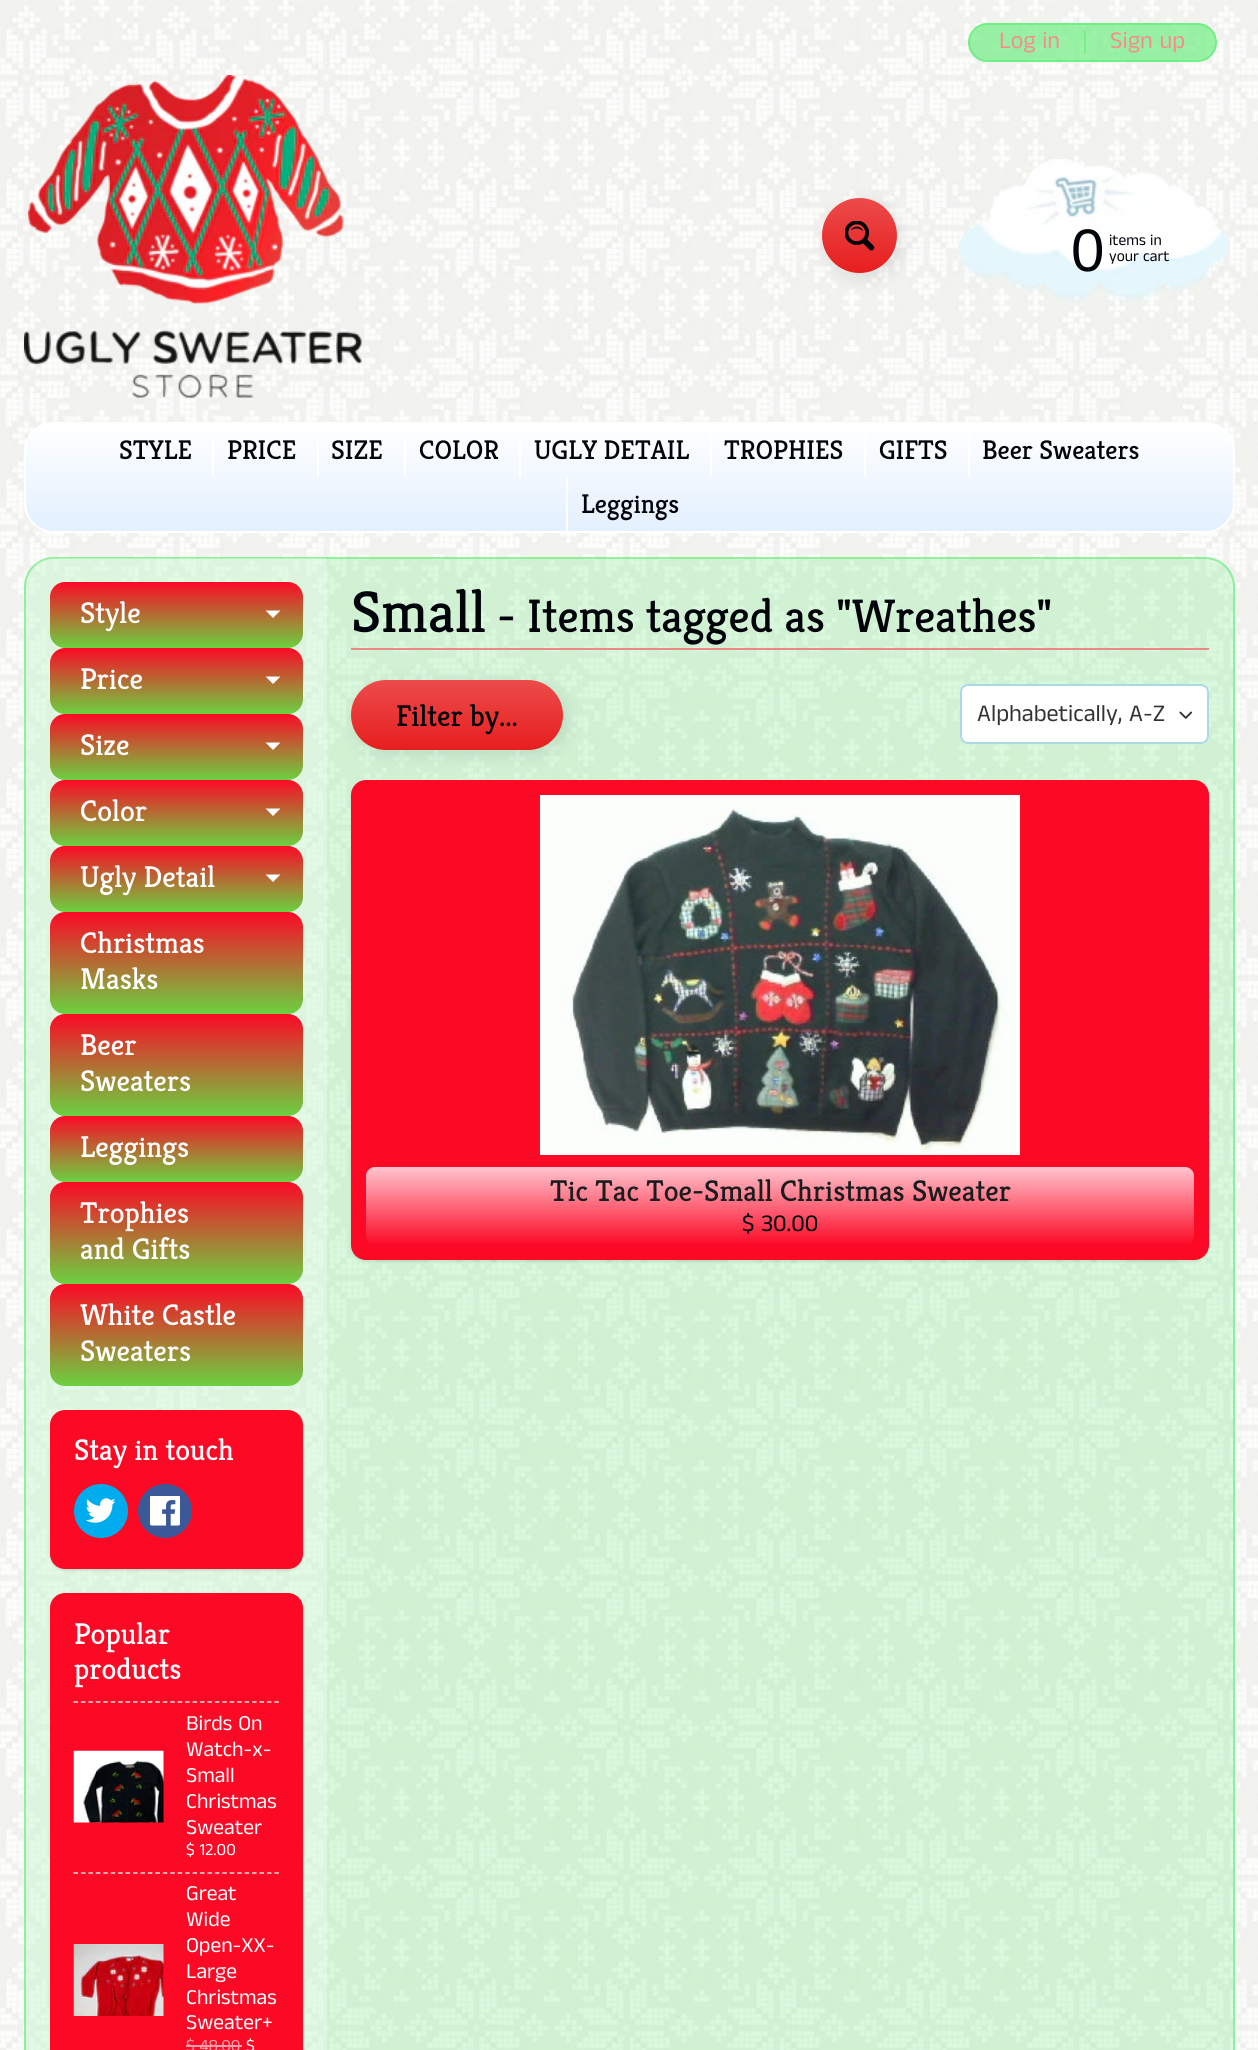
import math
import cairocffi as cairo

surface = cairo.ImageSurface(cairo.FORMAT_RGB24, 1258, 2050)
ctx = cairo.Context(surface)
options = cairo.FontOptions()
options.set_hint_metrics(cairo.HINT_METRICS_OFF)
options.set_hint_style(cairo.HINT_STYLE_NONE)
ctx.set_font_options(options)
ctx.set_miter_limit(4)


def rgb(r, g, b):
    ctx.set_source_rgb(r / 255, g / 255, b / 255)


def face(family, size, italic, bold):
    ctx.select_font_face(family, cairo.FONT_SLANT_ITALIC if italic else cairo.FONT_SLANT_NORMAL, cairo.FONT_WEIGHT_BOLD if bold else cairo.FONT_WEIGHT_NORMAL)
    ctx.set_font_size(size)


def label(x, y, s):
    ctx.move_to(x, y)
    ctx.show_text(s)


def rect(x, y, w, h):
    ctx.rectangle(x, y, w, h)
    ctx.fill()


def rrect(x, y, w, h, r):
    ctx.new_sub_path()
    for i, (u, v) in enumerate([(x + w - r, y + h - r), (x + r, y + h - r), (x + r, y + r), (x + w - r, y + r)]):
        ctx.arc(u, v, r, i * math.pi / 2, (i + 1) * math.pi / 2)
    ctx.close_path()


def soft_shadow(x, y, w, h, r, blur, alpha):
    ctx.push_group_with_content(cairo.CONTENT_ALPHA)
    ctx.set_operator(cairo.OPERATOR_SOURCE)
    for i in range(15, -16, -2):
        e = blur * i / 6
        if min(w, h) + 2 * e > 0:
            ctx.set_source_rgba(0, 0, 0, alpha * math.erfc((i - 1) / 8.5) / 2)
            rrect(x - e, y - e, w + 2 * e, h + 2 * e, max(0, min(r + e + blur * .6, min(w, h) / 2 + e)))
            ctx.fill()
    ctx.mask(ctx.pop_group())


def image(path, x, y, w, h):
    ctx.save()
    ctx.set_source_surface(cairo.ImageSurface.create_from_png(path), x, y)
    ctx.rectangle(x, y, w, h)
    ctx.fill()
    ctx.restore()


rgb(255, 255, 255)
ctx.paint()
image('image0.png', 0, 0, 1258, 2050)
image('image1.png', 24, 75, 338, 323)
ctx.set_source_rgba(0.443, 0.933, 0.518, 0.7)
rrect(969, 24, 247, 37, 18.5)
ctx.fill_preserve()
rgb(113, 238, 132)
ctx.stroke()
face('Anek Tamil', 24, 0, 0)
rgb(246, 140, 140)
label(999, 48, 'Log in')
rgb(113, 238, 132)
label(1082, 48, '|')
rgb(246, 140, 140)
label(1110, 48, 'Sign up')
rgb(0, 0, 0)
soft_shadow(827, 203, 75, 75, 37.5, 9, 0.1)
gradient = cairo.LinearGradient(860, 198, 860, 273)
gradient.add_color_stop_rgba(0, 0.925, 0.294, 0.294, 1)
gradient.add_color_stop_rgba(1, 0.906, 0.118, 0.118, 1)
ctx.set_source(gradient)
ctx.arc(859.5, 235.5, 37.5, 0, 2 * math.pi)
ctx.fill()
image('image2.png', 845, 221, 30, 30)
image('image3.png', 958, 159, 271, 143)
face('Liberation Sans', 60, 0, 0)
rgb(1, 3, 11)
label(1071, 271, '0')
face('Anek Tamil', 15.5, 0, 0)
label(1109, 245, 'items in')
label(1109, 261, 'your cart')
ctx.save()
rrect(24, 422, 1211, 111, 30)
ctx.clip()
gradient = cairo.LinearGradient(629, 423, 629, 531)
gradient.add_color_stop_rgba(0, 1, 1, 1, 1)
gradient.add_color_stop_rgba(1, 0.89, 0.941, 1, 1)
ctx.set_source(gradient)
rect(24, 423, 1211, 108)
ctx.restore()
rrect(25, 423, 1209, 109, 29)
rgb(255, 255, 255)
ctx.stroke()
face('Kreon', 27, 0, 0)
rgb(1, 3, 11)
label(119, 459, 'STYLE')
rgb(255, 255, 255)
rect(212, 433, 2, 44)
rgb(1, 3, 11)
label(227, 459, 'PRICE')
rgb(255, 255, 255)
rect(317, 433, 2, 44)
rgb(1, 3, 11)
label(331, 459, 'SIZE')
rgb(255, 255, 255)
rect(404, 433, 2, 44)
rgb(1, 3, 11)
label(419, 459, 'COLOR')
rgb(255, 255, 255)
rect(519, 433, 2, 44)
rgb(1, 3, 11)
label(534, 459, 'UGLY DETAIL')
rgb(255, 255, 255)
rect(710, 433, 2, 44)
rgb(1, 3, 11)
label(724, 459, 'TROPHIES')
rgb(255, 255, 255)
rect(864, 433, 2, 44)
rgb(1, 3, 11)
label(879, 459, 'GIFTS')
rgb(255, 255, 255)
rect(968, 433, 2, 44)
rgb(1, 3, 11)
label(982, 459, 'Beer Sweaters')
rgb(255, 255, 255)
rect(566, 477, 2, 54)
rgb(1, 3, 11)
label(581, 513, 'Leggings')
ctx.set_source_rgba(0.443, 0.933, 0.518, 0.25)
rrect(24, 557, 1211, 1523, 30)
ctx.fill()
rrect(25, 558, 1209, 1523, 29)
ctx.set_source_rgba(0.443, 0.933, 0.518, 0.7)
ctx.stroke()
ctx.set_source_rgba(1, 1, 1, 0.25)
ctx.new_path()
ctx.move_to(55, 558)
ctx.line_to(327, 558)
ctx.line_to(327, 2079)
ctx.line_to(55, 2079)
ctx.curve_to(39, 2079, 26, 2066, 26, 2050)
ctx.line_to(26, 587)
ctx.curve_to(26, 571, 39, 558, 55, 558)
ctx.close_path()
ctx.fill()
gradient = cairo.LinearGradient(176, 582, 176, 648)
gradient.add_color_stop_rgba(0, 0.988, 0.035, 0.149, 1)
gradient.add_color_stop_rgba(1, 0.42, 0.82, 0.251, 1)
ctx.set_source(gradient)
rrect(50, 582, 253, 66, 15)
ctx.fill()
face('Kreon', 30, 0, 0)
rgb(255, 255, 255)
label(80, 623, 'Style')
ctx.new_path()
ctx.move_to(265.5, 610.5)
ctx.line_to(280.5, 610.5)
ctx.line_to(273, 618)
ctx.close_path()
ctx.fill()
gradient = cairo.LinearGradient(176, 648, 176, 714)
gradient.add_color_stop_rgba(0, 0.988, 0.035, 0.149, 1)
gradient.add_color_stop_rgba(1, 0.42, 0.82, 0.251, 1)
ctx.set_source(gradient)
rrect(50, 648, 253, 66, 15)
ctx.fill()
rgb(255, 255, 255)
label(80, 689, 'Price')
ctx.new_path()
ctx.move_to(265.5, 676.5)
ctx.line_to(280.5, 676.5)
ctx.line_to(273, 684)
ctx.close_path()
ctx.fill()
gradient = cairo.LinearGradient(176, 714, 176, 780)
gradient.add_color_stop_rgba(0, 0.988, 0.035, 0.149, 1)
gradient.add_color_stop_rgba(1, 0.42, 0.82, 0.251, 1)
ctx.set_source(gradient)
rrect(50, 714, 253, 66, 15)
ctx.fill()
rgb(255, 255, 255)
label(80, 755, 'Size')
ctx.new_path()
ctx.move_to(265.5, 742.5)
ctx.line_to(280.5, 742.5)
ctx.line_to(273, 750)
ctx.close_path()
ctx.fill()
gradient = cairo.LinearGradient(176, 780, 176, 846)
gradient.add_color_stop_rgba(0, 0.988, 0.035, 0.149, 1)
gradient.add_color_stop_rgba(1, 0.42, 0.82, 0.251, 1)
ctx.set_source(gradient)
rrect(50, 780, 253, 66, 15)
ctx.fill()
rgb(255, 255, 255)
label(80, 821, 'Color')
ctx.new_path()
ctx.move_to(265.5, 808.5)
ctx.line_to(280.5, 808.5)
ctx.line_to(273, 816)
ctx.close_path()
ctx.fill()
gradient = cairo.LinearGradient(176, 846, 176, 912)
gradient.add_color_stop_rgba(0, 0.988, 0.035, 0.149, 1)
gradient.add_color_stop_rgba(1, 0.42, 0.82, 0.251, 1)
ctx.set_source(gradient)
rrect(50, 846, 253, 66, 15)
ctx.fill()
rgb(255, 255, 255)
label(80, 887, 'Ugly Detail')
ctx.new_path()
ctx.move_to(265.5, 874.5)
ctx.line_to(280.5, 874.5)
ctx.line_to(273, 882)
ctx.close_path()
ctx.fill()
gradient = cairo.LinearGradient(176, 912, 176, 1014)
gradient.add_color_stop_rgba(0, 0.988, 0.035, 0.149, 1)
gradient.add_color_stop_rgba(1, 0.42, 0.82, 0.251, 1)
ctx.set_source(gradient)
rrect(50, 912, 253, 102, 15)
ctx.fill()
rgb(255, 255, 255)
label(80, 953, 'Christmas')
label(80, 989, 'Masks')
gradient = cairo.LinearGradient(176, 1014, 176, 1116)
gradient.add_color_stop_rgba(0, 0.988, 0.035, 0.149, 1)
gradient.add_color_stop_rgba(1, 0.42, 0.82, 0.251, 1)
ctx.set_source(gradient)
rrect(50, 1014, 253, 102, 15)
ctx.fill()
rgb(255, 255, 255)
label(80, 1055, 'Beer')
label(80, 1091, 'Sweaters')
gradient = cairo.LinearGradient(176, 1116, 176, 1182)
gradient.add_color_stop_rgba(0, 0.988, 0.035, 0.149, 1)
gradient.add_color_stop_rgba(1, 0.42, 0.82, 0.251, 1)
ctx.set_source(gradient)
rrect(50, 1116, 253, 66, 15)
ctx.fill()
rgb(255, 255, 255)
label(80, 1157, 'Leggings')
gradient = cairo.LinearGradient(176, 1182, 176, 1284)
gradient.add_color_stop_rgba(0, 0.988, 0.035, 0.149, 1)
gradient.add_color_stop_rgba(1, 0.42, 0.82, 0.251, 1)
ctx.set_source(gradient)
rrect(50, 1182, 253, 102, 15)
ctx.fill()
rgb(255, 255, 255)
label(80, 1223, 'Trophies')
label(80, 1259, 'and Gifts')
gradient = cairo.LinearGradient(176, 1284, 176, 1386)
gradient.add_color_stop_rgba(0, 0.988, 0.035, 0.149, 1)
gradient.add_color_stop_rgba(1, 0.42, 0.82, 0.251, 1)
ctx.set_source(gradient)
rrect(50, 1284, 253, 102, 15)
ctx.fill()
rgb(255, 255, 255)
label(80, 1325, 'White Castle')
label(80, 1361, 'Sweaters')
rgb(0, 0, 0)
soft_shadow(50, 1412, 253, 159, 15, 1, 0.1)
rgb(252, 9, 38)
rrect(50, 1410, 253, 159, 15)
ctx.fill()
rgb(255, 255, 255)
label(74, 1460, 'Stay in touch')
rgb(0, 172, 237)
ctx.new_path()
ctx.arc(101, 1511, 27, 0, 2 * math.pi)
ctx.fill()
image('image4.png', 86, 1498, 30, 25)
rgb(59, 89, 152)
ctx.arc(165, 1511, 27, 0, 2 * math.pi)
ctx.fill()
image('image5.png', 150, 1496, 30, 30)
rgb(0, 0, 0)
soft_shadow(50, 1595, 253, 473, 15, 1, 0.1)
rgb(252, 9, 38)
rrect(50, 1593, 253, 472, 15)
ctx.fill()
rgb(255, 255, 255)
label(74, 1644, 'Popular')
label(74, 1679, 'products')
ctx.new_path()
ctx.move_to(73.5, 1702)
ctx.line_to(279, 1702)
rgb(221, 221, 221)
ctx.set_line_width(1.5)
ctx.set_dash([4.5, 2.94])
ctx.stroke()
image('image6.png', 73, 1750, 91, 73)
face('Anek Tamil', 21.5, 0, 0)
rgb(255, 255, 255)
label(186, 1730, 'Birds On')
label(186, 1756, 'Watch-x-')
label(186, 1782, 'Small')
label(186, 1808, 'Christmas')
label(186, 1834, 'Sweater')
face('Anek Tamil', 17, 0, 0)
label(186, 1855, '$ 12.00')
ctx.new_path()
ctx.move_to(73.5, 1873)
ctx.line_to(279, 1873)
rgb(221, 221, 221)
ctx.stroke()
image('image7.png', 73, 1944, 91, 72)
face('Anek Tamil', 21.5, 0, 0)
rgb(255, 255, 255)
label(186, 1900, 'Great')
label(186, 1926, 'Wide')
label(186, 1952, 'Open-XX-')
label(186, 1978, 'Large')
label(186, 2004, 'Christmas')
label(186, 2029, 'Sweater+')
face('Anek Tamil', 17, 0, 0)
rgb(254, 157, 168)
label(186, 2051, '$ 48.00')
rect(186, 2045, 56, 2)
rgb(255, 255, 255)
label(246, 2051, '$')
rgb(236, 136, 136)
rect(351, 648, 858, 2)
face('Kreon', 59, 0, 0)
rgb(1, 3, 11)
label(351, 632, 'Small')
face('Kreon', 46.9, 0, 0)
label(497, 632, '- Items tagged as "Wreathes"')
rgb(0, 0, 0)
soft_shadow(356, 684, 211, 71, 35.5, 9, 0.1)
gradient = cairo.LinearGradient(457, 680, 457, 750)
gradient.add_color_stop_rgba(0, 0.925, 0.294, 0.294, 1)
gradient.add_color_stop_rgba(1, 0.906, 0.118, 0.118, 1)
ctx.set_source(gradient)
rrect(351, 680, 212, 70, 35)
ctx.fill()
face('Kreon', 30, 0, 0)
rgb(1, 3, 11)
label(396, 726, 'Filter by...')
rgb(255, 255, 255)
rrect(960, 684, 249, 60, 8)
ctx.fill()
image('image8.png', 1179, 711, 14, 8)
rrect(961, 685, 247, 58, 7)
rgb(170, 217, 230)
ctx.set_line_width(2)
ctx.set_dash([])
ctx.stroke()
face('Anek Tamil', 24, 0, 0)
rgb(51, 51, 51)
label(977, 721, 'Alphabetically, A-Z')
rgb(0, 0, 0)
soft_shadow(351, 782, 858, 480, 15, 1, 0.1)
rgb(252, 9, 38)
rrect(351, 780, 858, 480, 15)
ctx.fill()
image('image9.png', 540, 795, 480, 360)
gradient = cairo.LinearGradient(780, 1167, 780, 1245)
gradient.add_color_stop_rgba(0, 1, 0.769, 0.808, 1)
gradient.add_color_stop_rgba(1, 0.988, 0.035, 0.149, 1)
ctx.set_source(gradient)
rrect(366, 1167, 828, 78, 9)
ctx.fill()
face('Kreon', 30, 0, 0)
rgb(27, 28, 30)
label(550, 1201, 'Tic Tac Toe-Small Christmas Sweater')
face('Anek Tamil', 24, 0, 0)
rgb(1, 3, 11)
label(742, 1231, '$ 30.00')
surface.write_to_png('render.png')
